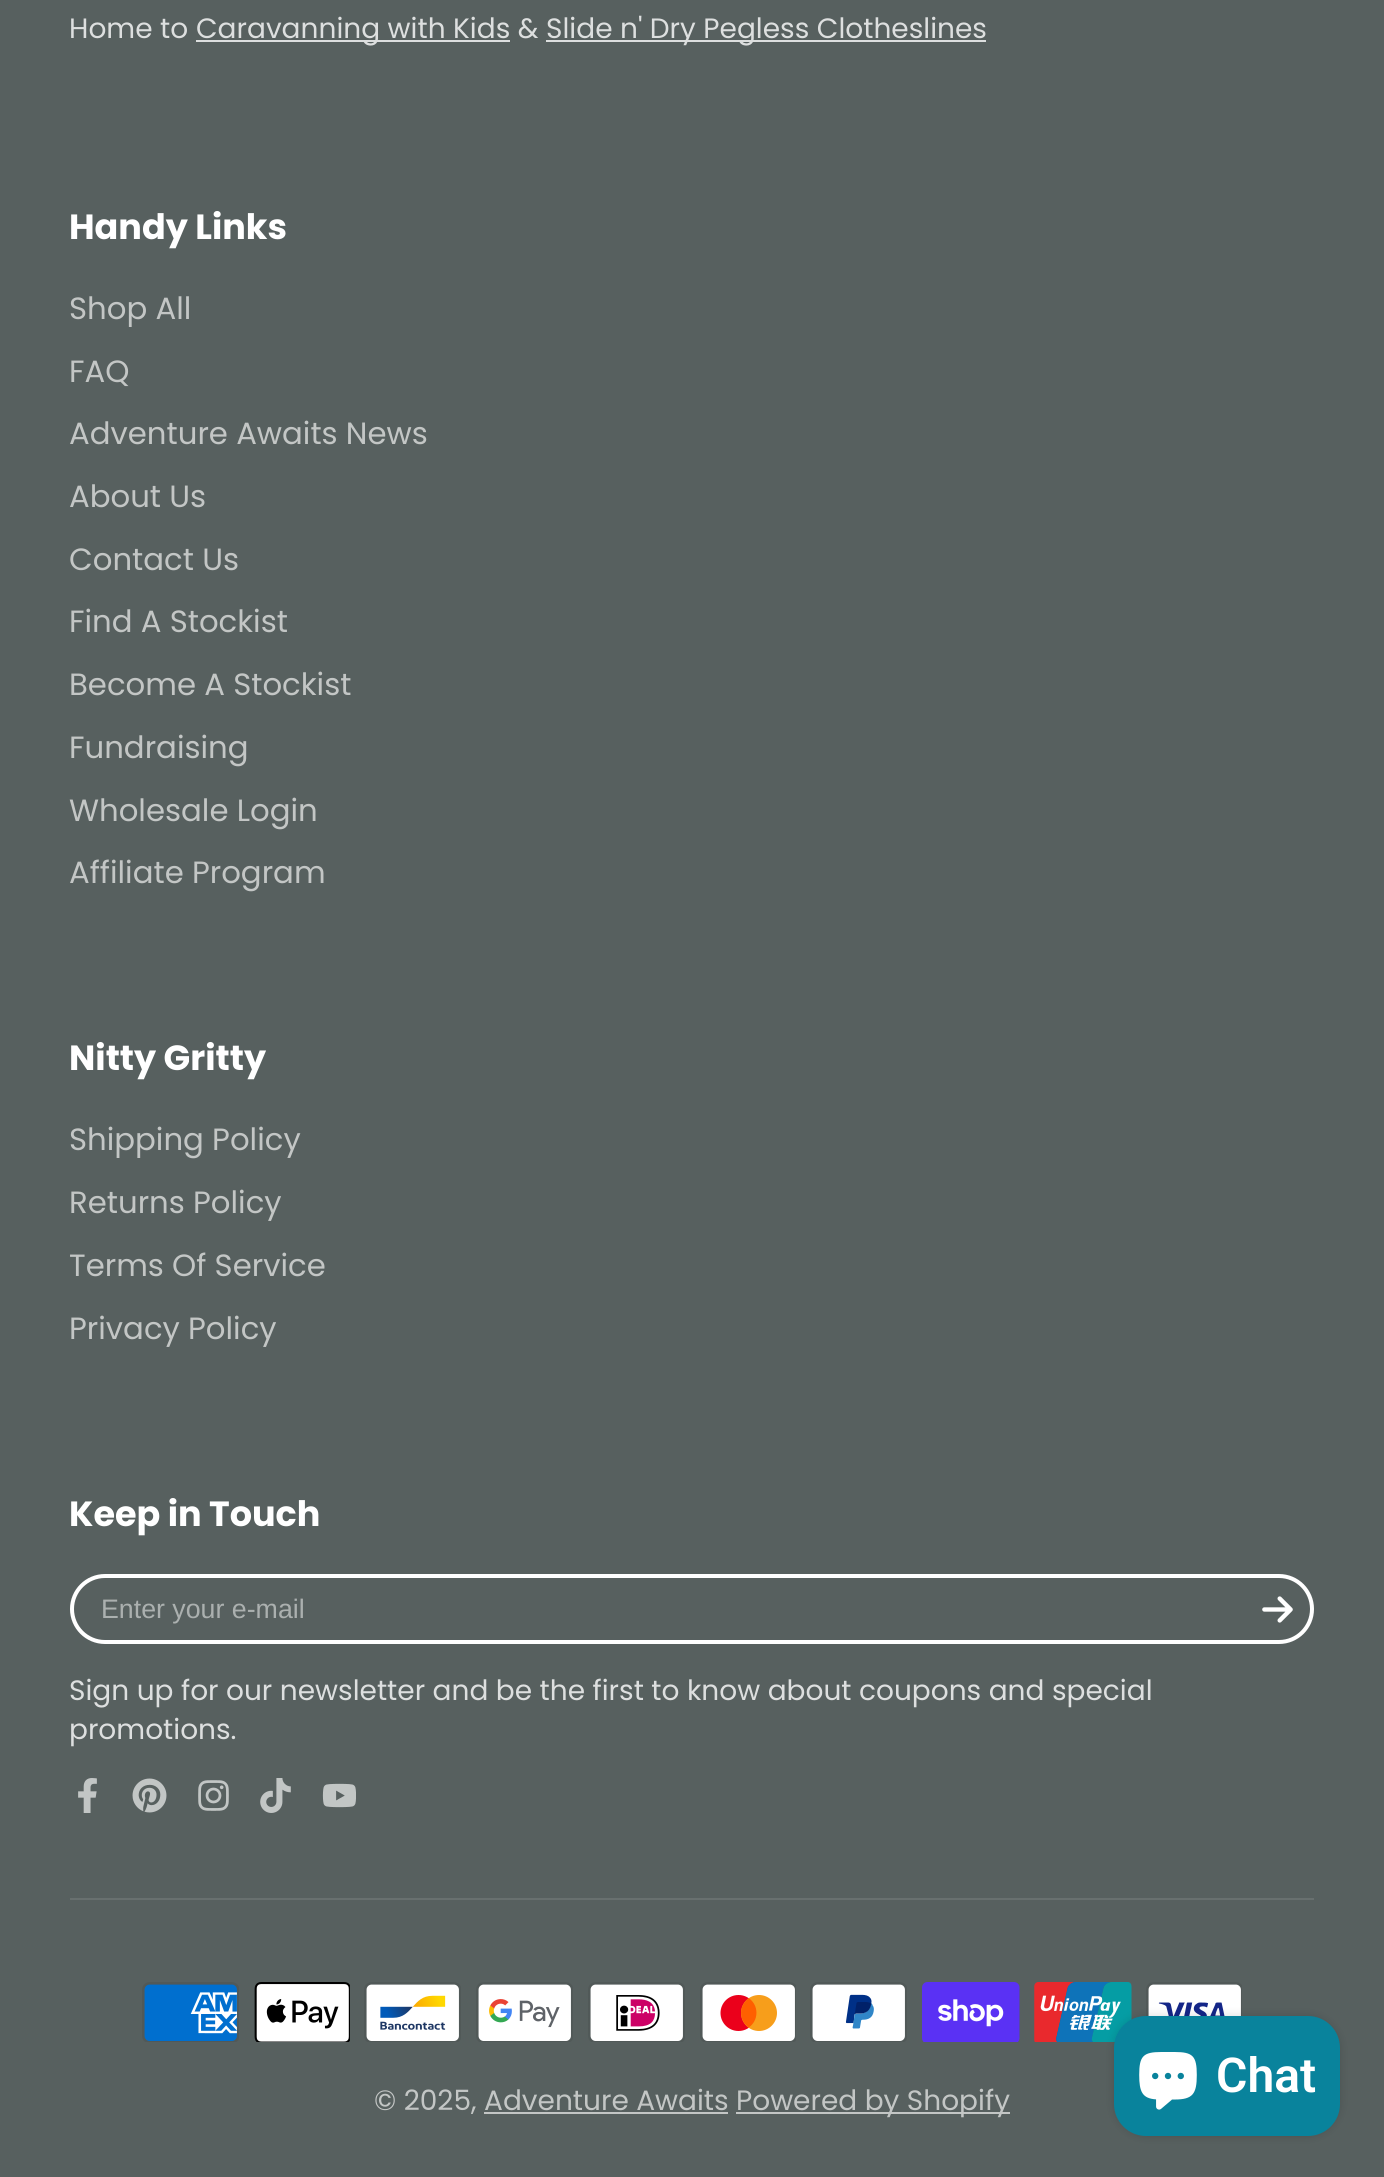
import math
import cairocffi as cairo

surface = cairo.ImageSurface(cairo.FORMAT_RGB24, 1384, 2177)
ctx = cairo.Context(surface)
options = cairo.FontOptions()
options.set_hint_metrics(cairo.HINT_METRICS_OFF)
options.set_hint_style(cairo.HINT_STYLE_NONE)
ctx.set_font_options(options)
ctx.set_miter_limit(4)


def rgb(r, g, b):
    ctx.set_source_rgb(r / 255, g / 255, b / 255)


def face(family, size, italic, bold):
    ctx.select_font_face(family, cairo.FONT_SLANT_ITALIC if italic else cairo.FONT_SLANT_NORMAL, cairo.FONT_WEIGHT_BOLD if bold else cairo.FONT_WEIGHT_NORMAL)
    ctx.set_font_size(size)


def label(x, y, s):
    ctx.move_to(x, y)
    ctx.show_text(s)


def rect(x, y, w, h):
    ctx.rectangle(x, y, w, h)
    ctx.fill()


def rrect(x, y, w, h, r):
    ctx.new_sub_path()
    for i, (u, v) in enumerate([(x + w - r, y + h - r), (x + r, y + h - r), (x + r, y + r), (x + w - r, y + r)]):
        ctx.arc(u, v, r, i * math.pi / 2, (i + 1) * math.pi / 2)
    ctx.close_path()


def soft_shadow(x, y, w, h, r, blur, alpha):
    ctx.push_group_with_content(cairo.CONTENT_ALPHA)
    ctx.set_operator(cairo.OPERATOR_SOURCE)
    for i in range(15, -16, -2):
        e = blur * i / 6
        if min(w, h) + 2 * e > 0:
            ctx.set_source_rgba(0, 0, 0, alpha * math.erfc((i - 1) / 8.5) / 2)
            rrect(x - e, y - e, w + 2 * e, h + 2 * e, max(0, min(r + e + blur * .6, min(w, h) / 2 + e)))
            ctx.fill()
    ctx.mask(ctx.pop_group())


def image(path, x, y, w, h):
    ctx.save()
    ctx.set_source_surface(cairo.ImageSurface.create_from_png(path), x, y)
    ctx.rectangle(x, y, w, h)
    ctx.fill()
    ctx.restore()


rgb(87, 96, 95)
ctx.paint()
face('Poppins', 28, 0, 0)
rgb(221, 223, 223)
label(69, 38, 'Home to')
rect(196, 40, 314, 2)
label(196, 38, 'Caravanning with Kids &')
rect(546, 40, 440, 2)
label(546, 38, 'Slide n\' Dry Pegless Clotheslines')
face('Poppins', 35, 0, 1)
rgb(255, 255, 255)
label(69, 239, 'Handy Links')
face('Poppins', 30.75, 0, 0)
rgb(195, 198, 197)
label(69, 319, 'Shop All')
label(69, 382, 'FAQ')
label(69, 444, 'Adventure Awaits News')
label(69, 507, 'About Us')
label(69, 570, 'Contact Us')
label(69, 632, 'Find A Stockist')
label(69, 695, 'Become A Stockist')
label(69, 758, 'Fundraising')
label(69, 821, 'Wholesale Login')
label(69, 883, 'Affiliate Program')
face('Poppins', 35, 0, 1)
rgb(255, 255, 255)
label(69, 1070, 'Nitty Gritty')
face('Poppins', 30.75, 0, 0)
rgb(195, 198, 197)
label(69, 1150, 'Shipping Policy')
label(69, 1213, 'Returns Policy')
label(69, 1276, 'Terms Of Service')
label(69, 1339, 'Privacy Policy')
face('Poppins', 35, 0, 1)
rgb(255, 255, 255)
label(69, 1526, 'Keep in Touch')
rrect(72, 1576, 1240, 66, 33)
ctx.set_line_width(4)
ctx.stroke()
face('Liberation Sans', 26.75, 0, 0)
rgb(171, 176, 175)
label(101, 1618, 'Enter your e-mail')
image('image0.png', 1262, 1596, 31, 27)
face('Poppins', 28, 0, 0)
rgb(221, 223, 223)
label(69, 1700, 'Sign up for our newsletter and be the first to know about coupons and special')
label(69, 1739, 'promotions.')
image('image1.png', 78, 1778, 19, 35)
image('image2.png', 132, 1778, 35, 35)
image('image3.png', 198, 1780, 31, 31)
image('image4.png', 260, 1778, 31, 35)
image('image5.png', 322, 1783, 34, 25)
rgb(104, 112, 111)
rect(70, 1898, 1244, 2)
image('image6.png', 142, 1982, 97, 60)
image('image7.png', 254, 1982, 96, 60)
image('image8.png', 364, 1982, 97, 60)
image('image9.png', 476, 1982, 97, 60)
image('image10.png', 588, 1982, 97, 60)
image('image11.png', 700, 1982, 96, 60)
image('image12.png', 810, 1982, 97, 60)
image('image13.png', 922, 1982, 98, 60)
image('image14.png', 1034, 1982, 98, 60)
image('image15.png', 1146, 1982, 96, 34)
rgb(195, 198, 197)
label(374, 2110, '© 2025, Adventure Awaits')
rect(736, 2112, 274, 2)
label(736, 2110, 'Powered by Shopify')
rect(484, 2112, 244, 2)
rgb(0, 0, 0)
soft_shadow(1114, 2016, 226, 120, 32, 5, 0.15)
rgb(9, 131, 156)
rrect(1114, 2016, 226, 120, 32)
ctx.fill()
image('image16.png', 1139, 2052, 58, 58)
face('Roboto SemiBold', 48, 0, 0)
rgb(255, 255, 255)
label(1216, 2092, 'Chat')
surface.write_to_png('render.png')
